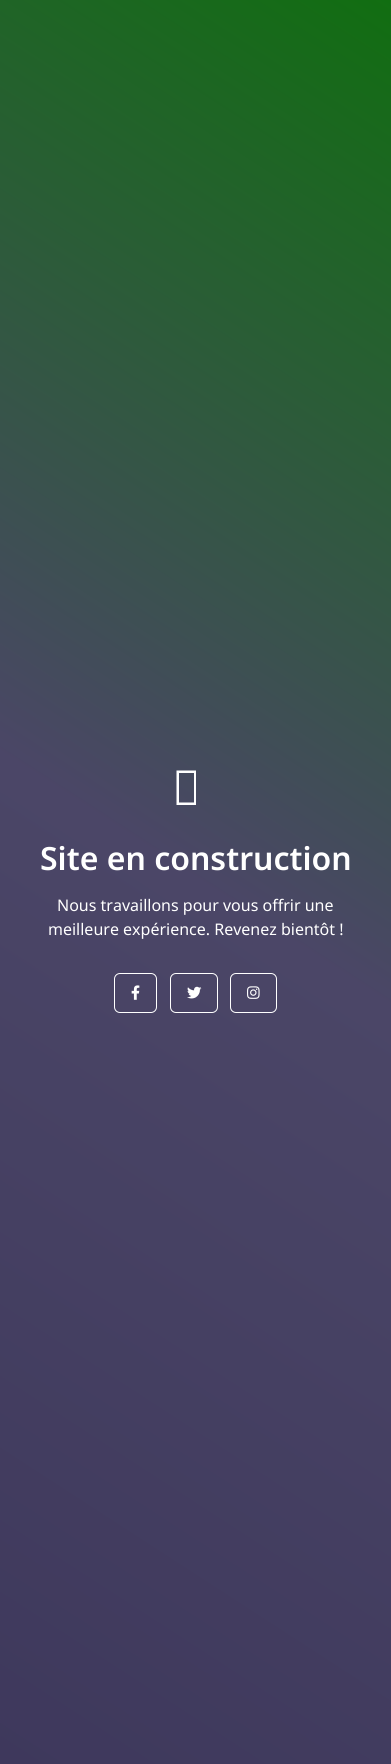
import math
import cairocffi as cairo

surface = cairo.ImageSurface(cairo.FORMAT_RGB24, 391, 1764)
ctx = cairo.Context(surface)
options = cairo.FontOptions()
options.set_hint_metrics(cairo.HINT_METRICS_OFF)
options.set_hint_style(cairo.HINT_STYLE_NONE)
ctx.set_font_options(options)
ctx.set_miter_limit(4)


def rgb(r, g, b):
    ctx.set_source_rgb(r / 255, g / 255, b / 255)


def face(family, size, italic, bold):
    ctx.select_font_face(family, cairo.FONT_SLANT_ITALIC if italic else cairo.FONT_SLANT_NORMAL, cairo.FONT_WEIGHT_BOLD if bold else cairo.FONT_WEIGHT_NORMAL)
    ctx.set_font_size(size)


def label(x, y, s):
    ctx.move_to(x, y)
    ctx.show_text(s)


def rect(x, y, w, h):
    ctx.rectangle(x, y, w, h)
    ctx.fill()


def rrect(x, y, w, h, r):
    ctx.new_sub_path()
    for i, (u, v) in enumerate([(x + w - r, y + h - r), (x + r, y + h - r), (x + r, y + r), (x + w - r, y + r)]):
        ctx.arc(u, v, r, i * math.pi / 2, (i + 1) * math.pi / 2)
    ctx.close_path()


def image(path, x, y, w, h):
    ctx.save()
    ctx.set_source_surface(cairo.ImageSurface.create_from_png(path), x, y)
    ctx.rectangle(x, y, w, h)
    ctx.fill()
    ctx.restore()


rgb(255, 255, 255)
ctx.paint()
gradient = cairo.LinearGradient(-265, 1592, 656, 172)
gradient.add_color_stop_rgba(0, 0.243, 0.22, 0.361, 1)
gradient.add_color_stop_rgba(0.5, 0.294, 0.275, 0.404, 1)
gradient.add_color_stop_rgba(1, 0.067, 0.431, 0.067, 1)
ctx.set_source(gradient)
rect(0, 0, 391, 1764)
rgb(255, 255, 255)
ctx.new_path()
ctx.move_to(176.5, 805)
ctx.line_to(176.5, 770.5)
ctx.line_to(196, 770.5)
ctx.line_to(196, 805)
ctx.close_path()
ctx.move_to(179, 802.5)
ctx.line_to(194, 802.5)
ctx.line_to(194, 773)
ctx.line_to(179, 773)
ctx.close_path()
ctx.fill()
face('Noto Sans SemiBold', 32, 0, 0)
label(40, 870, 'Site en construction')
face('Noto Sans', 16, 0, 0)
label(57, 911, 'Nous travaillons pour vous offrir une')
label(48, 935, 'meilleure expérience. Revenez bientôt !')
rrect(114.5, 973.5, 42, 39, 5.5)
ctx.set_line_width(1)
ctx.stroke()
image('image0.png', 131, 985, 9, 15)
rrect(170.5, 973.5, 47, 39, 5.5)
ctx.stroke()
image('image1.png', 187, 986, 15, 13)
rrect(230.5, 973.5, 46, 39, 5.5)
ctx.stroke()
image('image2.png', 247, 986, 13, 13)
surface.write_to_png('render.png')
